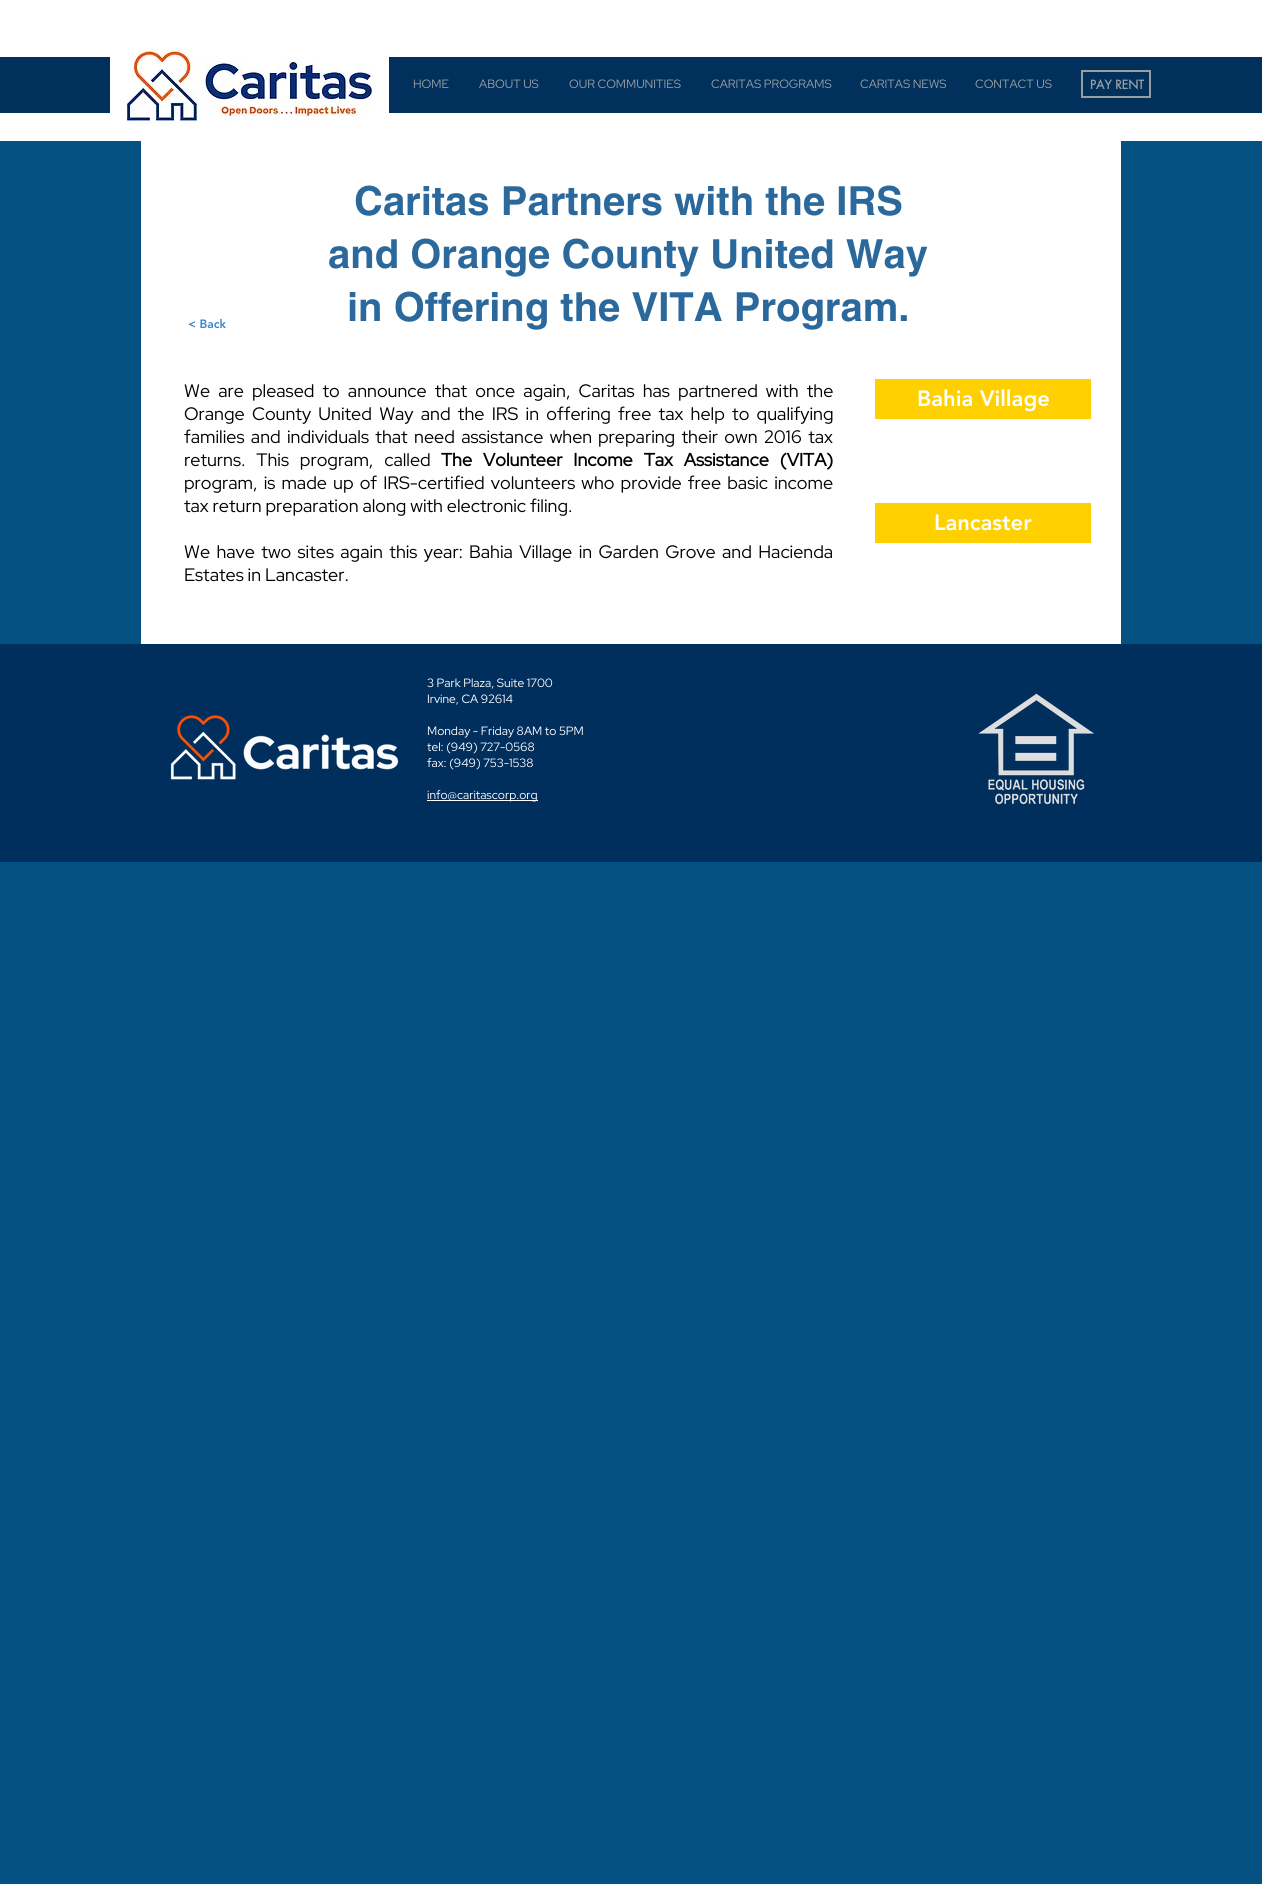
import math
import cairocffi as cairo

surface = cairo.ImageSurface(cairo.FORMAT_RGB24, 1262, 1884)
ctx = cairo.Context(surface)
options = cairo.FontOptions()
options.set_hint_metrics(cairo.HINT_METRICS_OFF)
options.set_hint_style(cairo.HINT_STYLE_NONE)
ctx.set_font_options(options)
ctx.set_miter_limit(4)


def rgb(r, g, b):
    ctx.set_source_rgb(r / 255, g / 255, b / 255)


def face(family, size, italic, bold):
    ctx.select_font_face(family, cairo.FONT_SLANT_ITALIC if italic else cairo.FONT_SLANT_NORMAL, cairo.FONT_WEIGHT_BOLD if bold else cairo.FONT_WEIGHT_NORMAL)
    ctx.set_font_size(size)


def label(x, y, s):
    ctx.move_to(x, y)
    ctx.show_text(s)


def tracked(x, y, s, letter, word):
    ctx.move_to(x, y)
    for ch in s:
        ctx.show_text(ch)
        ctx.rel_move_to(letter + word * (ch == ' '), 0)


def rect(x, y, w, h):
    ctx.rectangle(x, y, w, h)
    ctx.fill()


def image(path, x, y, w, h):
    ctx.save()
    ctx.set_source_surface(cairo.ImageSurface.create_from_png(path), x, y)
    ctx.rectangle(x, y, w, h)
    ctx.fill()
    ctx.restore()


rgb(4, 81, 132)
ctx.paint()
rgb(255, 255, 255)
rect(0, 0, 1262, 141)
rgb(0, 48, 91)
rect(0, 57, 1262, 56)
image('image0.png', 110, 49, 279, 73)
face('Red Hat Display', 12, 0, 0)
rgb(152, 159, 164)
label(413, 88, 'HOME')
label(479, 88, 'ABOUT US')
label(569, 88, 'OUR COMMUNITIES')
label(711, 88, 'CARITAS PROGRAMS')
label(860, 88, 'CARITAS NEWS')
label(975, 88, 'CONTACT US')
ctx.rectangle(1082, 71, 68, 26)
ctx.stroke()
face('futura', 12, 0, 1)
label(1090, 89, 'PAY RENT')
rgb(255, 255, 255)
rect(141, 141, 980, 503)
face('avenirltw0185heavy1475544 Black', 12, 0, 0)
rgb(53, 136, 204)
label(188, 328, '< Back')
face('helvetica', 40, 0, 1)
rgb(43, 104, 156)
label(354, 215, 'Caritas Partners with the IRS')
label(328, 268, 'and Orange County United Way')
label(347, 321, 'in Offering the VITA Program.')
face('Red Hat Display', 18, 0, 0)
rgb(0, 0, 0)
tracked(184, 397, 'We are pleased to announce that once again, Caritas has partnered with the', 0, 4.25)
tracked(184, 420, 'Orange County United Way and the IRS in offering free tax help to qualifying', 0, 3.4)
tracked(184, 443, 'families and individuals that need assistance when', 0, 2.5)
tracked(598, 443, 'preparing their own 2016 tax', 0, 2.5)
tracked(184, 466, 'returns. This program, called', 0, 7)
face('Red Hat Display', 18, 0, 1)
tracked(441, 466, 'The Volunteer Income Tax Assistance (VITA)', 0, 7)
face('Red Hat Display', 18, 0, 0)
tracked(184, 489, 'program, is made up of IRS-certified volunteers who provide free basic income', 0, 2.25)
label(184, 512, 'tax return preparation along with electronic filing.')
tracked(184, 558, 'We have two sites again this year:', 0, 2.5)
tracked(469, 558, 'Bahia Village in Garden Grove and Hacienda', 0, 2.5)
label(184, 581, 'Estates in Lancaster.')
rgb(255, 208, 0)
rect(875, 379, 216, 40)
face('avenirltw0185heavy1475544 Black', 22, 0, 0)
rgb(255, 255, 255)
label(917, 406, 'Bahia Village')
rgb(255, 208, 0)
rect(875, 503, 216, 40)
rgb(255, 255, 255)
label(934, 530, 'Lancaster')
rgb(0, 46, 93)
rect(0, 644, 1262, 218)
image('image1.png', 170, 715, 229, 65)
face('Red Hat Display', 12, 0, 0)
rgb(255, 255, 255)
label(427, 687, '3 Park Plaza, Suite 1700')
label(427, 703, 'Irvine, CA 92614')
label(427, 735, 'Monday - Friday 8AM to 5PM')
label(427, 751, 'tel: (949) 727-0568')
label(427, 767, 'fax: (949) 753-1538')
rect(427, 800, 111, 1)
label(427, 799, 'info@caritascorp.org')
image('image2.png', 978, 693, 116, 112)
surface.write_to_png('render.png')
